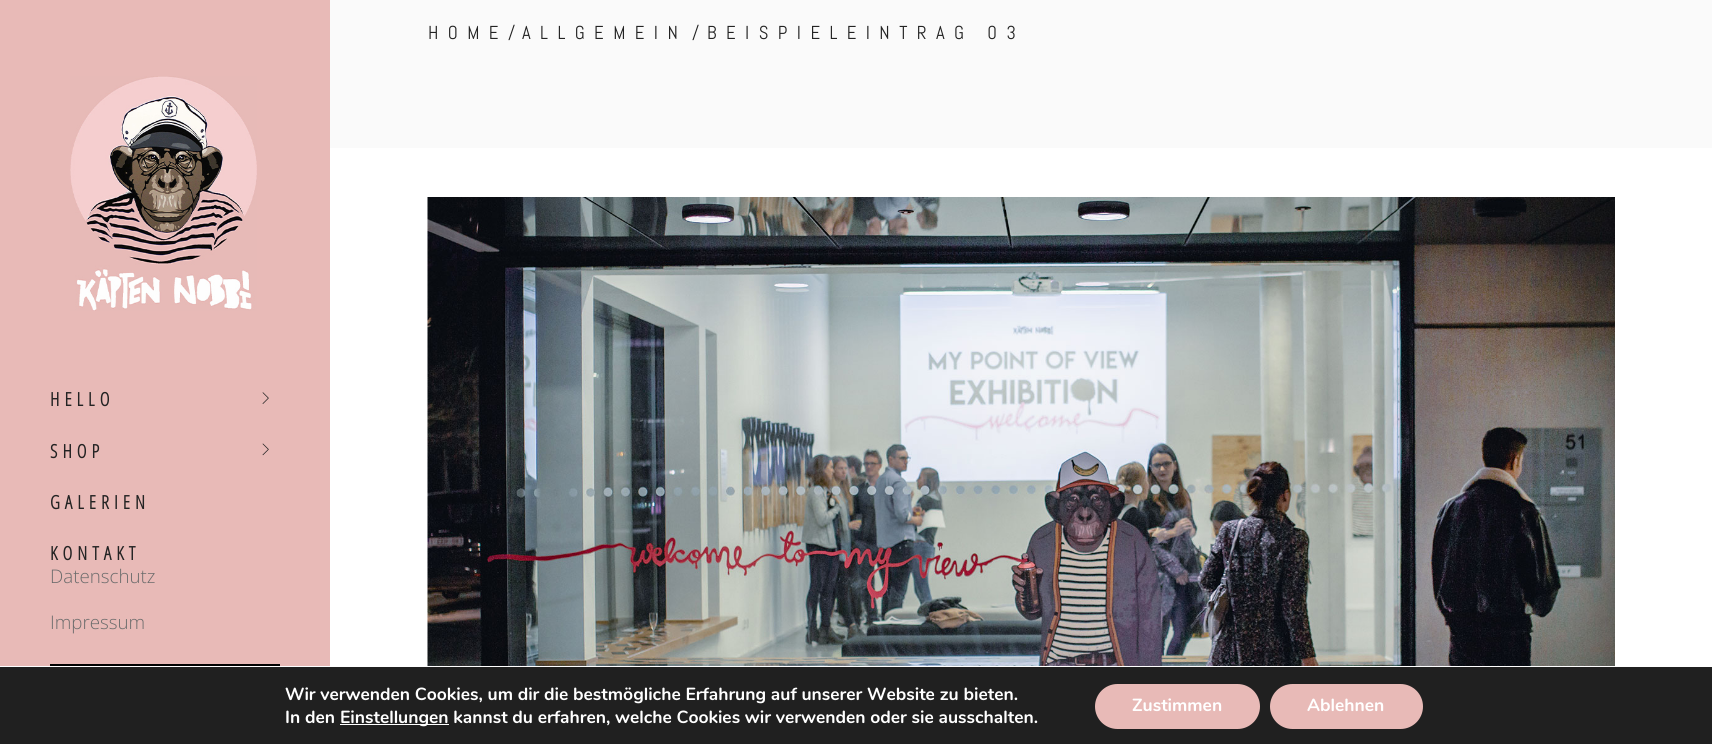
import math
import cairocffi as cairo

surface = cairo.ImageSurface(cairo.FORMAT_RGB24, 1712, 744)
ctx = cairo.Context(surface)
options = cairo.FontOptions()
options.set_hint_metrics(cairo.HINT_METRICS_OFF)
options.set_hint_style(cairo.HINT_STYLE_NONE)
ctx.set_font_options(options)
ctx.set_miter_limit(4)


def rgb(r, g, b):
    ctx.set_source_rgb(r / 255, g / 255, b / 255)


def face(family, size, italic, bold):
    ctx.select_font_face(family, cairo.FONT_SLANT_ITALIC if italic else cairo.FONT_SLANT_NORMAL, cairo.FONT_WEIGHT_BOLD if bold else cairo.FONT_WEIGHT_NORMAL)
    ctx.set_font_size(size)


def label(x, y, s):
    ctx.move_to(x, y)
    ctx.show_text(s)


def tracked(x, y, s, letter, word):
    ctx.move_to(x, y)
    for ch in s:
        ctx.show_text(ch)
        ctx.rel_move_to(letter + word * (ch == ' '), 0)


def rect(x, y, w, h):
    ctx.rectangle(x, y, w, h)
    ctx.fill()


def rrect(x, y, w, h, r):
    ctx.new_sub_path()
    for i, (u, v) in enumerate([(x + w - r, y + h - r), (x + r, y + h - r), (x + r, y + r), (x + w - r, y + r)]):
        ctx.arc(u, v, r, i * math.pi / 2, (i + 1) * math.pi / 2)
    ctx.close_path()


def image(path, x, y, w, h):
    ctx.save()
    ctx.set_source_surface(cairo.ImageSurface.create_from_png(path), x, y)
    ctx.rectangle(x, y, w, h)
    ctx.fill()
    ctx.restore()


rgb(255, 255, 255)
ctx.paint()
rgb(250, 250, 250)
rect(330, 0, 1382, 148)
face('Abel', 18.75, 0, 0)
rgb(35, 35, 35)
tracked(428, 39, 'HOME/', 9.4, 0)
tracked(522, 39, 'ALLGEMEIN', 9.4, 0)
tracked(692, 39, '/', 9.4, 0)
tracked(707, 39, 'BEISPIELEINTRAG 03', 9.4, 0)
image('image0.png', 427, 197, 1188, 469)
rgb(232, 186, 183)
rect(0, 0, 330, 666)
image('image1.png', 70, 76, 187, 235)
face('Open Sans Condensed', 18.75, 0, 1)
rgb(35, 35, 35)
tracked(50, 406, 'HELLO', 5, 0)
image('image2.png', 262, 392, 7, 12)
tracked(50, 458, 'SHOP', 5, 0)
image('image3.png', 262, 443, 7, 13)
tracked(50, 509, 'GALERIEN', 5, 0)
tracked(50, 560, 'KONTAKT', 5, 0)
face('Open Sans Light', 18.75, 0, 0)
rgb(108, 108, 108)
label(50, 583, 'Datenschutz')
label(50, 629, 'Impressum')
rgb(0, 0, 0)
rect(50, 664, 230, 2)
rgb(32, 32, 32)
rect(0, 667, 1712, 77)
face('Nunito', 17.5, 0, 1)
rgb(255, 255, 255)
label(285, 700, 'Wir verwenden Cookies, um dir die bestmögliche Erfahrung auf unserer Website zu bieten.')
label(285, 723, 'In den')
rect(340, 724, 109, 1)
label(340, 723, 'Einstellungen kannst du erfahren, welche Cookies wir verwenden oder sie ausschalten.')
rgb(232, 186, 183)
rrect(1095, 684, 165, 45, 22.5)
ctx.fill()
rgb(255, 255, 255)
label(1132, 711, 'Zustimmen')
rgb(232, 186, 183)
rrect(1270, 684, 153, 45, 22.5)
ctx.fill()
rgb(255, 255, 255)
label(1307, 711, 'Ablehnen')
surface.write_to_png('render.png')
